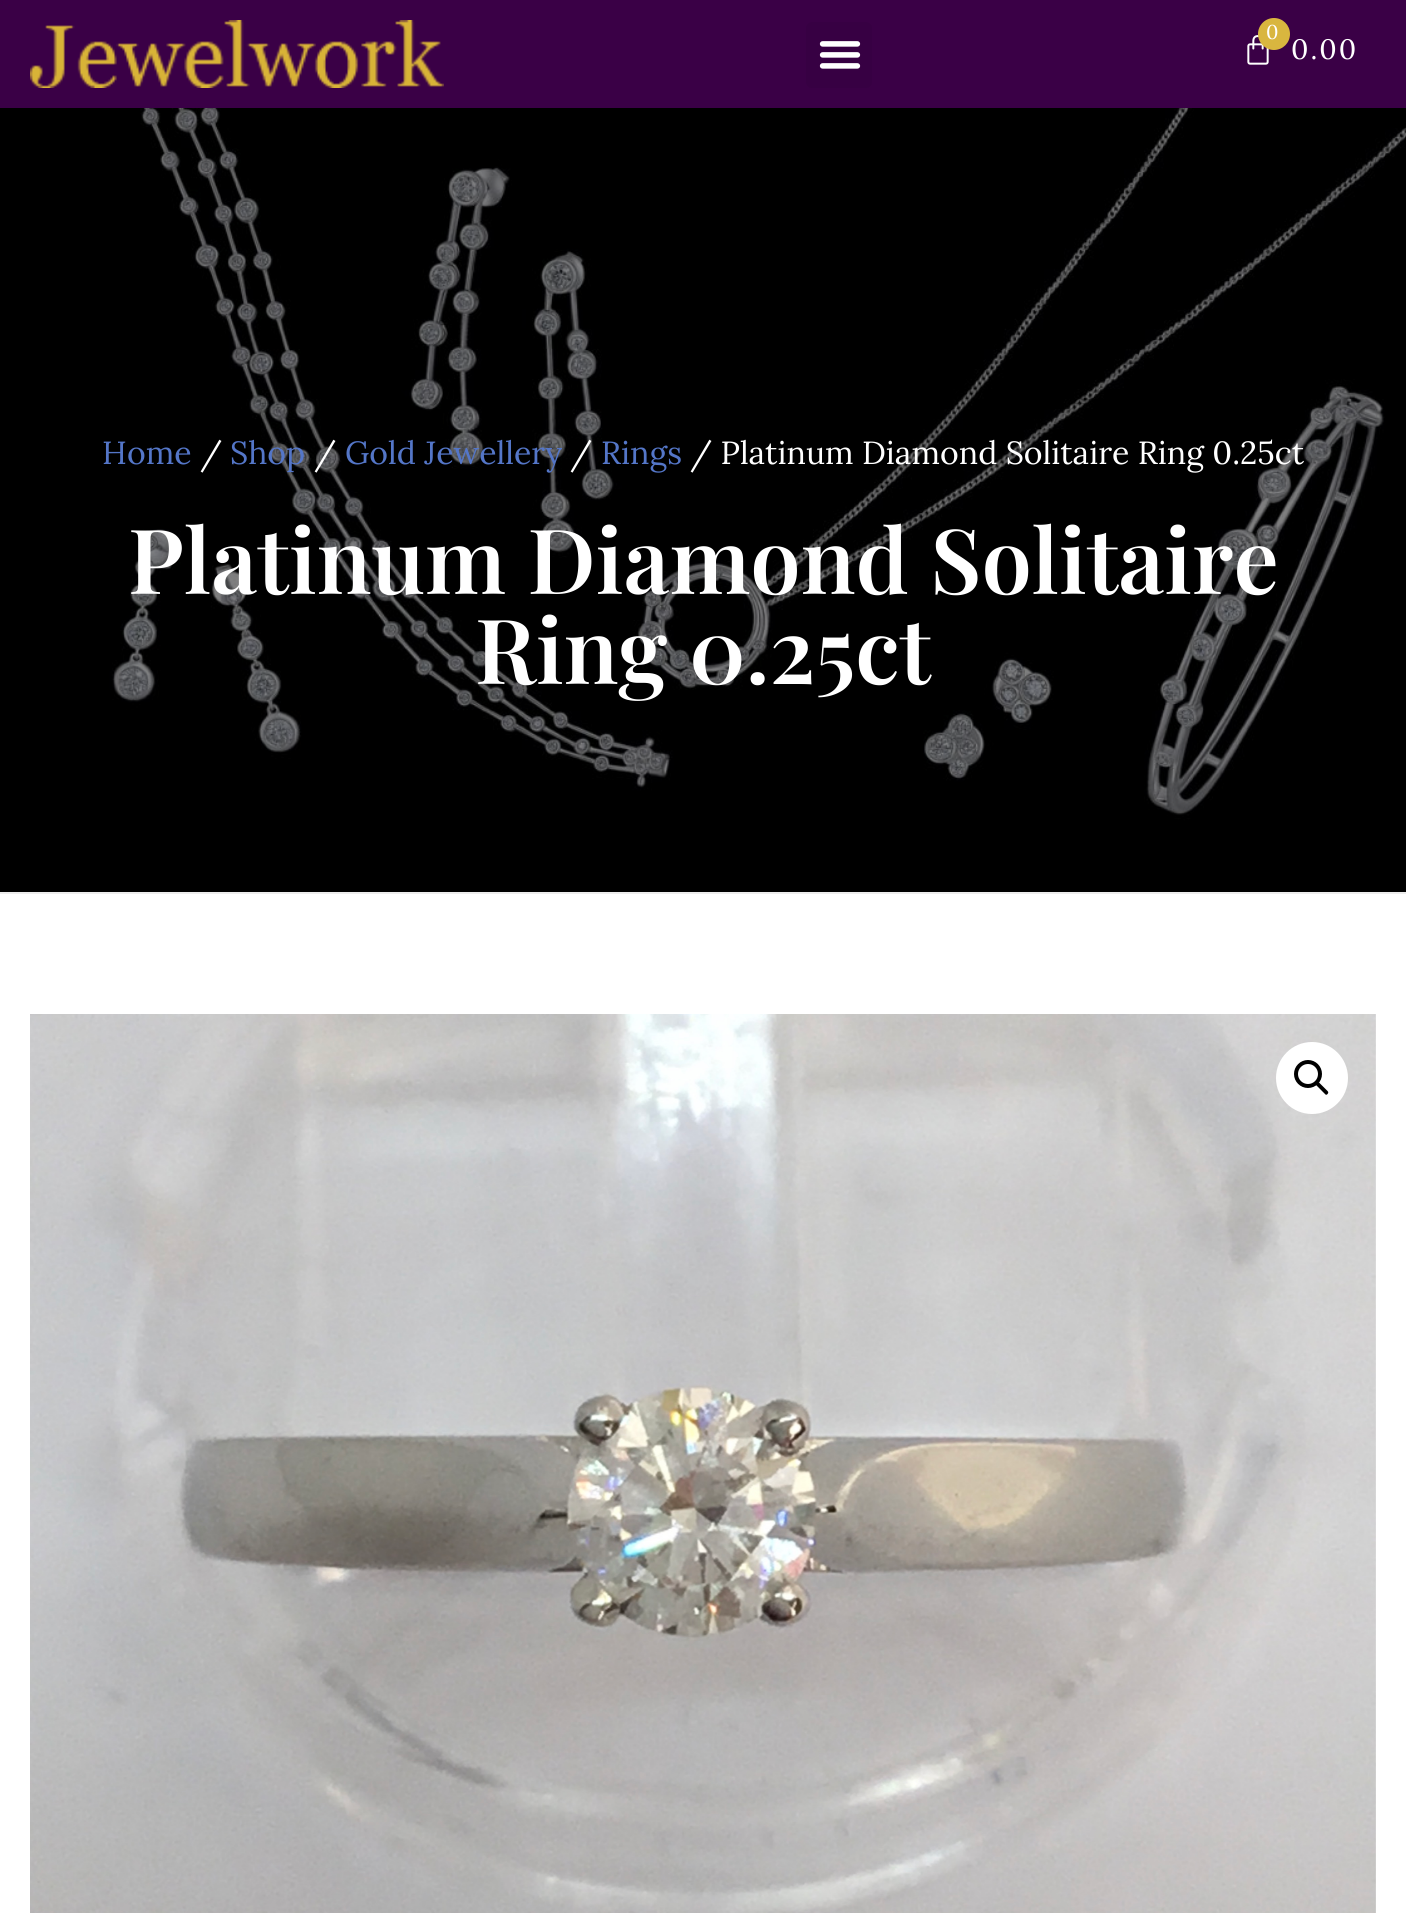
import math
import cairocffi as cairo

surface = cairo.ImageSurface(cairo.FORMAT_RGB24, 1406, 1913)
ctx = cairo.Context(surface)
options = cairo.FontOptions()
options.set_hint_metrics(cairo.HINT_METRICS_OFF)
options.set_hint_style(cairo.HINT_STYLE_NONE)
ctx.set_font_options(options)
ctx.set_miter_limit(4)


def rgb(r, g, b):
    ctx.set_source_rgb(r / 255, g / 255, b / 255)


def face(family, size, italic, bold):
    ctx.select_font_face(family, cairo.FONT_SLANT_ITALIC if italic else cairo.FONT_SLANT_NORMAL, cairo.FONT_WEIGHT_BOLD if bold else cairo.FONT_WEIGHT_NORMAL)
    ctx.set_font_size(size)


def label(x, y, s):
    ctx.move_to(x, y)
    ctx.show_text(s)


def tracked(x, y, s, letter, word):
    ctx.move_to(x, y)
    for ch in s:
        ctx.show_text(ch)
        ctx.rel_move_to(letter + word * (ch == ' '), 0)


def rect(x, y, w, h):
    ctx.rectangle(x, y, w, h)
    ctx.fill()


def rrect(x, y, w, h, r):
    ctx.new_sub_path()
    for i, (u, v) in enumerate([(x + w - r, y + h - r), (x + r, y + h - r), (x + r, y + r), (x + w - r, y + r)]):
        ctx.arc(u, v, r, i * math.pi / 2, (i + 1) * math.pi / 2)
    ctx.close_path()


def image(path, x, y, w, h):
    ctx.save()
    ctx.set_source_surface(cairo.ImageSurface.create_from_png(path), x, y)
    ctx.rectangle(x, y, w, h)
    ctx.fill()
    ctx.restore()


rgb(255, 255, 255)
ctx.paint()
rgb(58, 0, 70)
rect(0, 0, 1406, 108)
image('image0.png', 30, 20, 414, 68)
rgb(55, 0, 67)
rrect(806, 22, 66, 66, 6)
ctx.fill()
image('image1.png', 819, 41, 42, 28)
image('image2.png', 1247, 35, 22, 30)
rgb(217, 182, 63)
ctx.arc(1274, 34, 16, 0, 2 * math.pi)
ctx.fill()
face('Lora', 20, 0, 0)
rgb(255, 255, 255)
tracked(1266, 39, '0', 2, 0)
face('Lora', 28, 0, 0)
tracked(1291, 59, '0.00', 2, 0)
image('image3.png', 0, 108, 1406, 784)
face('Lora', 32, 0, 0)
rgb(84, 118, 200)
label(102, 464, 'Home')
rgb(255, 255, 255)
label(200, 464, '/')
rgb(84, 118, 200)
label(230, 464, 'Shop')
rgb(255, 255, 255)
label(314, 464, '/')
rgb(84, 118, 200)
label(345, 464, 'Gold Jewellery')
rgb(255, 255, 255)
label(570, 464, '/')
rgb(84, 118, 200)
label(601, 464, 'Rings')
rgb(255, 255, 255)
label(690, 464, '/ Platinum Diamond Solitaire Ring 0.25ct')
face('Playfair Display SemiBold', 90, 0, 0)
label(128, 594, 'Platinum Diamond Solitaire')
label(475, 684, 'Ring 0.25ct')
rgb(236, 236, 236)
rect(0, 892, 1406, 2)
image('image4.png', 30, 1014, 1346, 899)
rgb(255, 255, 255)
ctx.arc(1312, 1078, 36, 0, 2 * math.pi)
ctx.fill()
ctx.arc(1308, 1074, 12, 0, 2 * math.pi)
rgb(0, 0, 0)
ctx.set_line_width(4)
ctx.stroke()
ctx.new_path()
ctx.move_to(1316.5, 1082.5)
ctx.curve_to(1317, 1082, 1318.5, 1082, 1319, 1082.5)
ctx.line_to(1327.5, 1091)
ctx.curve_to(1328.5, 1092, 1328.5, 1093, 1327.5, 1094)
ctx.curve_to(1327, 1095, 1325.5, 1095, 1325, 1094)
ctx.line_to(1316.5, 1085.5)
ctx.curve_to(1315.5, 1084.5, 1315.5, 1083.5, 1316.5, 1082.5)
ctx.close_path()
ctx.fill()
surface.write_to_png('render.png')
